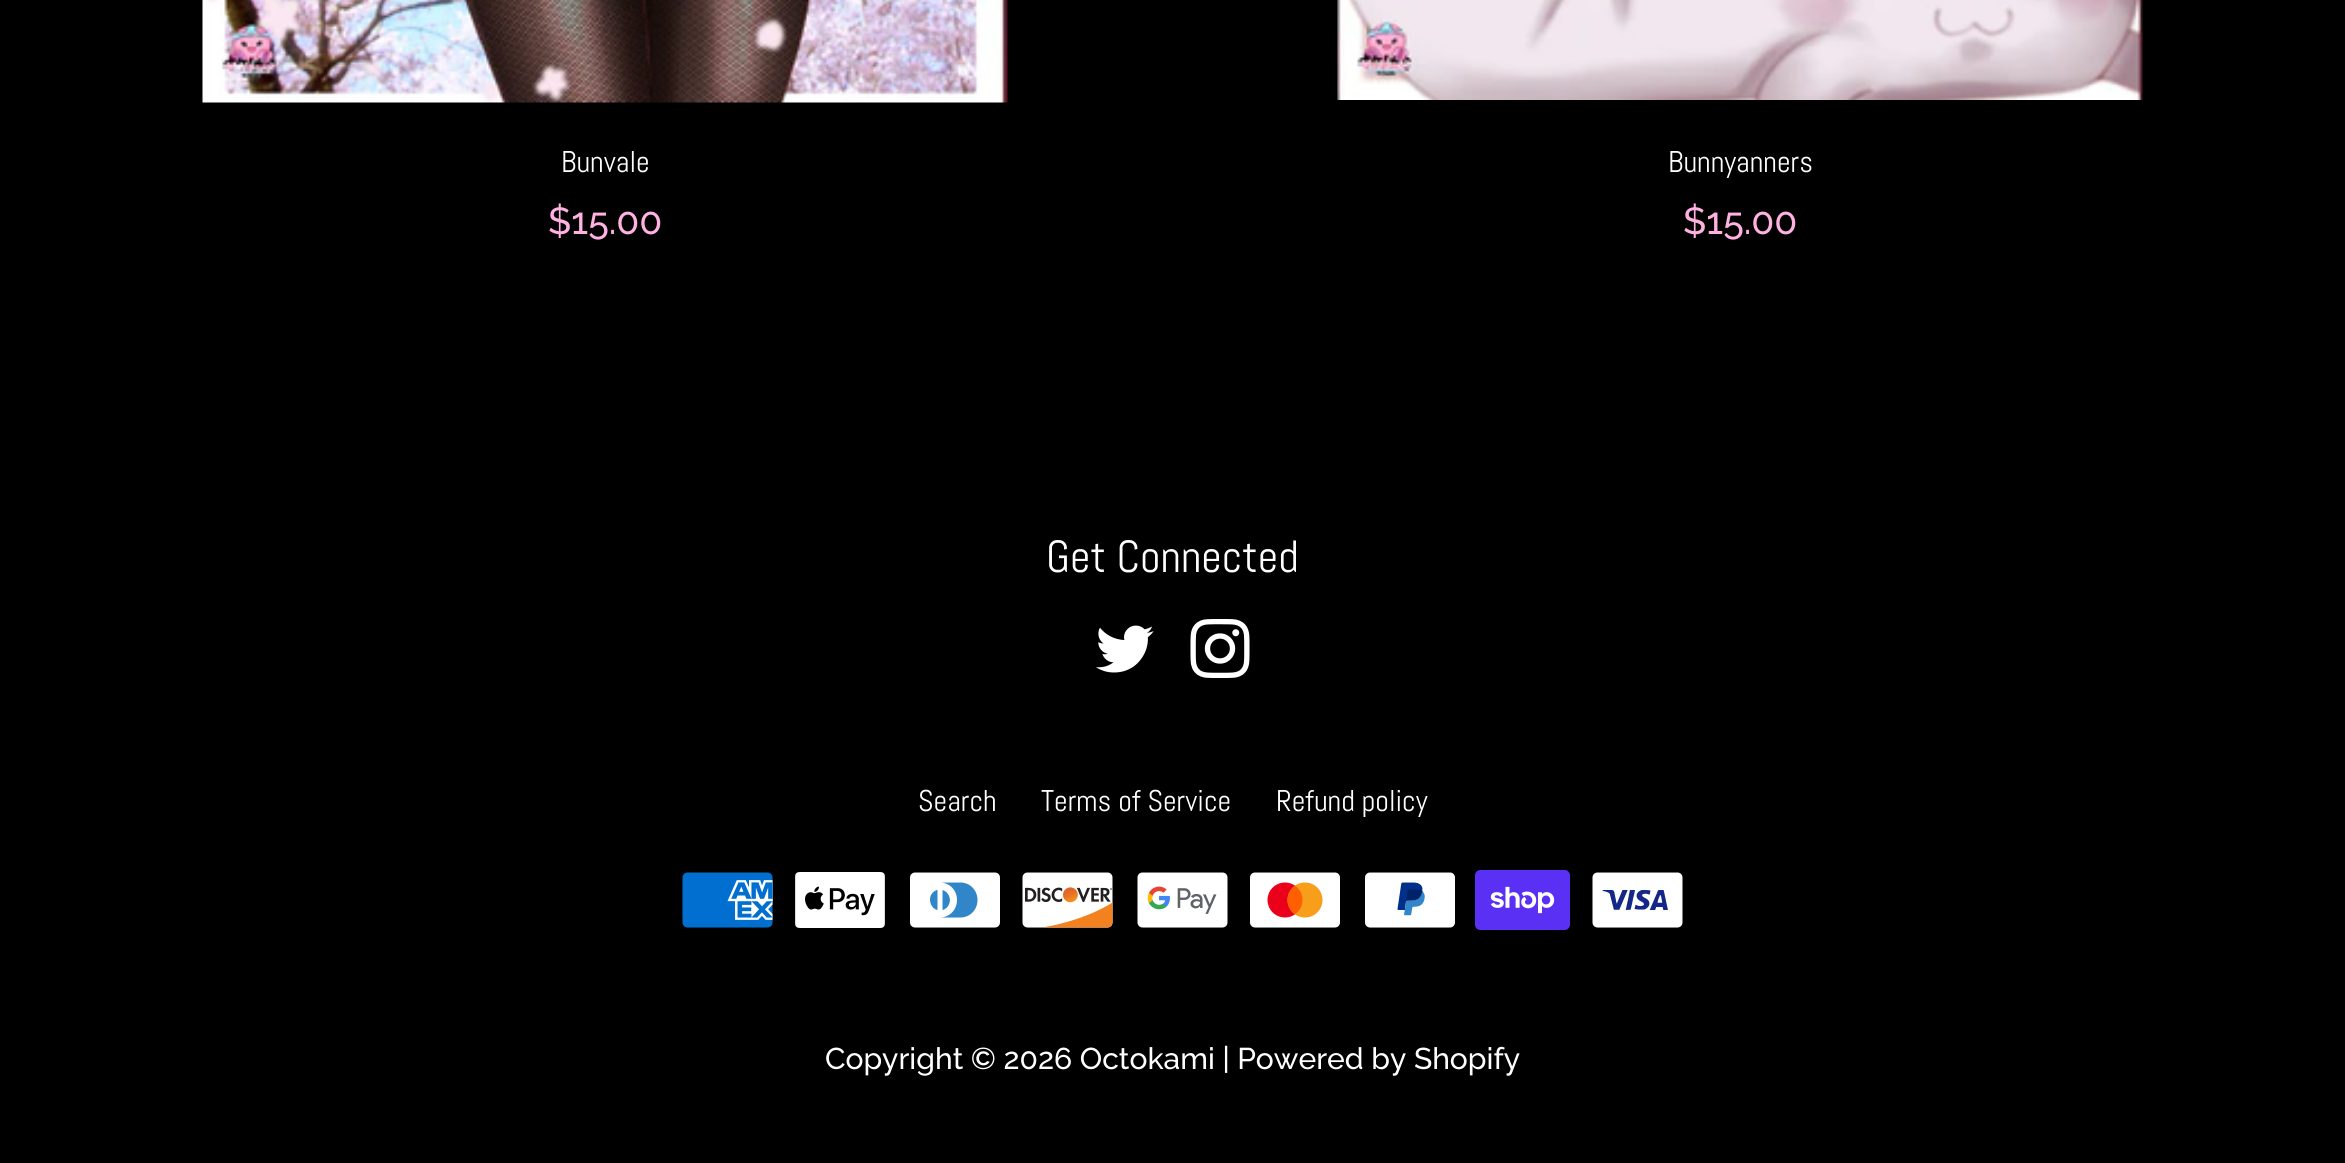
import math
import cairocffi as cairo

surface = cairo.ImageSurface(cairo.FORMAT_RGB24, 2345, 1163)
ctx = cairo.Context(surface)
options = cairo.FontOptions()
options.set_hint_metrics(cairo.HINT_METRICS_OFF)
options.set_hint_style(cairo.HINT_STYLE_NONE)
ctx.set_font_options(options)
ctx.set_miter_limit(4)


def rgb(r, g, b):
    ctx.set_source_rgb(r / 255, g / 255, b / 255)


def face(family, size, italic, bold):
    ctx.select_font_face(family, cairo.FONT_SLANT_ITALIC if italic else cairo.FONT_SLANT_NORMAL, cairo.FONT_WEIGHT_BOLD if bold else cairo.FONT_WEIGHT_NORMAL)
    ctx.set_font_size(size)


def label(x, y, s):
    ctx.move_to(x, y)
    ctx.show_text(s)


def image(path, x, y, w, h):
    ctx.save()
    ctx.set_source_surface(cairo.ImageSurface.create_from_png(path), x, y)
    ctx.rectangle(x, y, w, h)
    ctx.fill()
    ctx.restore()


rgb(0, 0, 0)
ctx.paint()
image('image0.png', 202, 0, 806, 103)
face('Abel', 30, 0, 0)
rgb(255, 255, 255)
label(561, 172, 'Bunvale')
face('Raleway Medium', 37.5, 0, 0)
rgb(255, 177, 226)
label(548, 234, '$15.00')
image('image1.png', 1337, 0, 806, 100)
face('Abel', 30, 0, 0)
rgb(255, 255, 255)
label(1668, 172, 'Bunnyanners')
face('Raleway Medium', 37.5, 0, 0)
rgb(255, 177, 226)
label(1683, 234, '$15.00')
face('Abel', 45, 0, 0)
rgb(255, 255, 255)
label(1046, 572, 'Get Connected')
image('image2.png', 1096, 625, 58, 48)
image('image3.png', 1190, 619, 60, 59)
face('Abel', 30, 0, 0)
label(918, 811, 'Search')
label(1041, 811, 'Terms of Service')
label(1276, 811, 'Refund policy')
image('image4.png', 682, 872, 91, 56)
image('image5.png', 795, 872, 90, 56)
image('image6.png', 910, 872, 90, 56)
image('image7.png', 1022, 872, 91, 56)
image('image8.png', 1137, 872, 91, 56)
image('image9.png', 1250, 872, 90, 56)
image('image10.png', 1365, 872, 90, 56)
image('image11.png', 1475, 870, 95, 60)
image('image12.png', 1592, 872, 91, 56)
face('Raleway Medium', 30, 0, 0)
label(825, 1069, 'Copyright © 2026 Octokami | Powered by Shopify')
surface.write_to_png('render.png')
